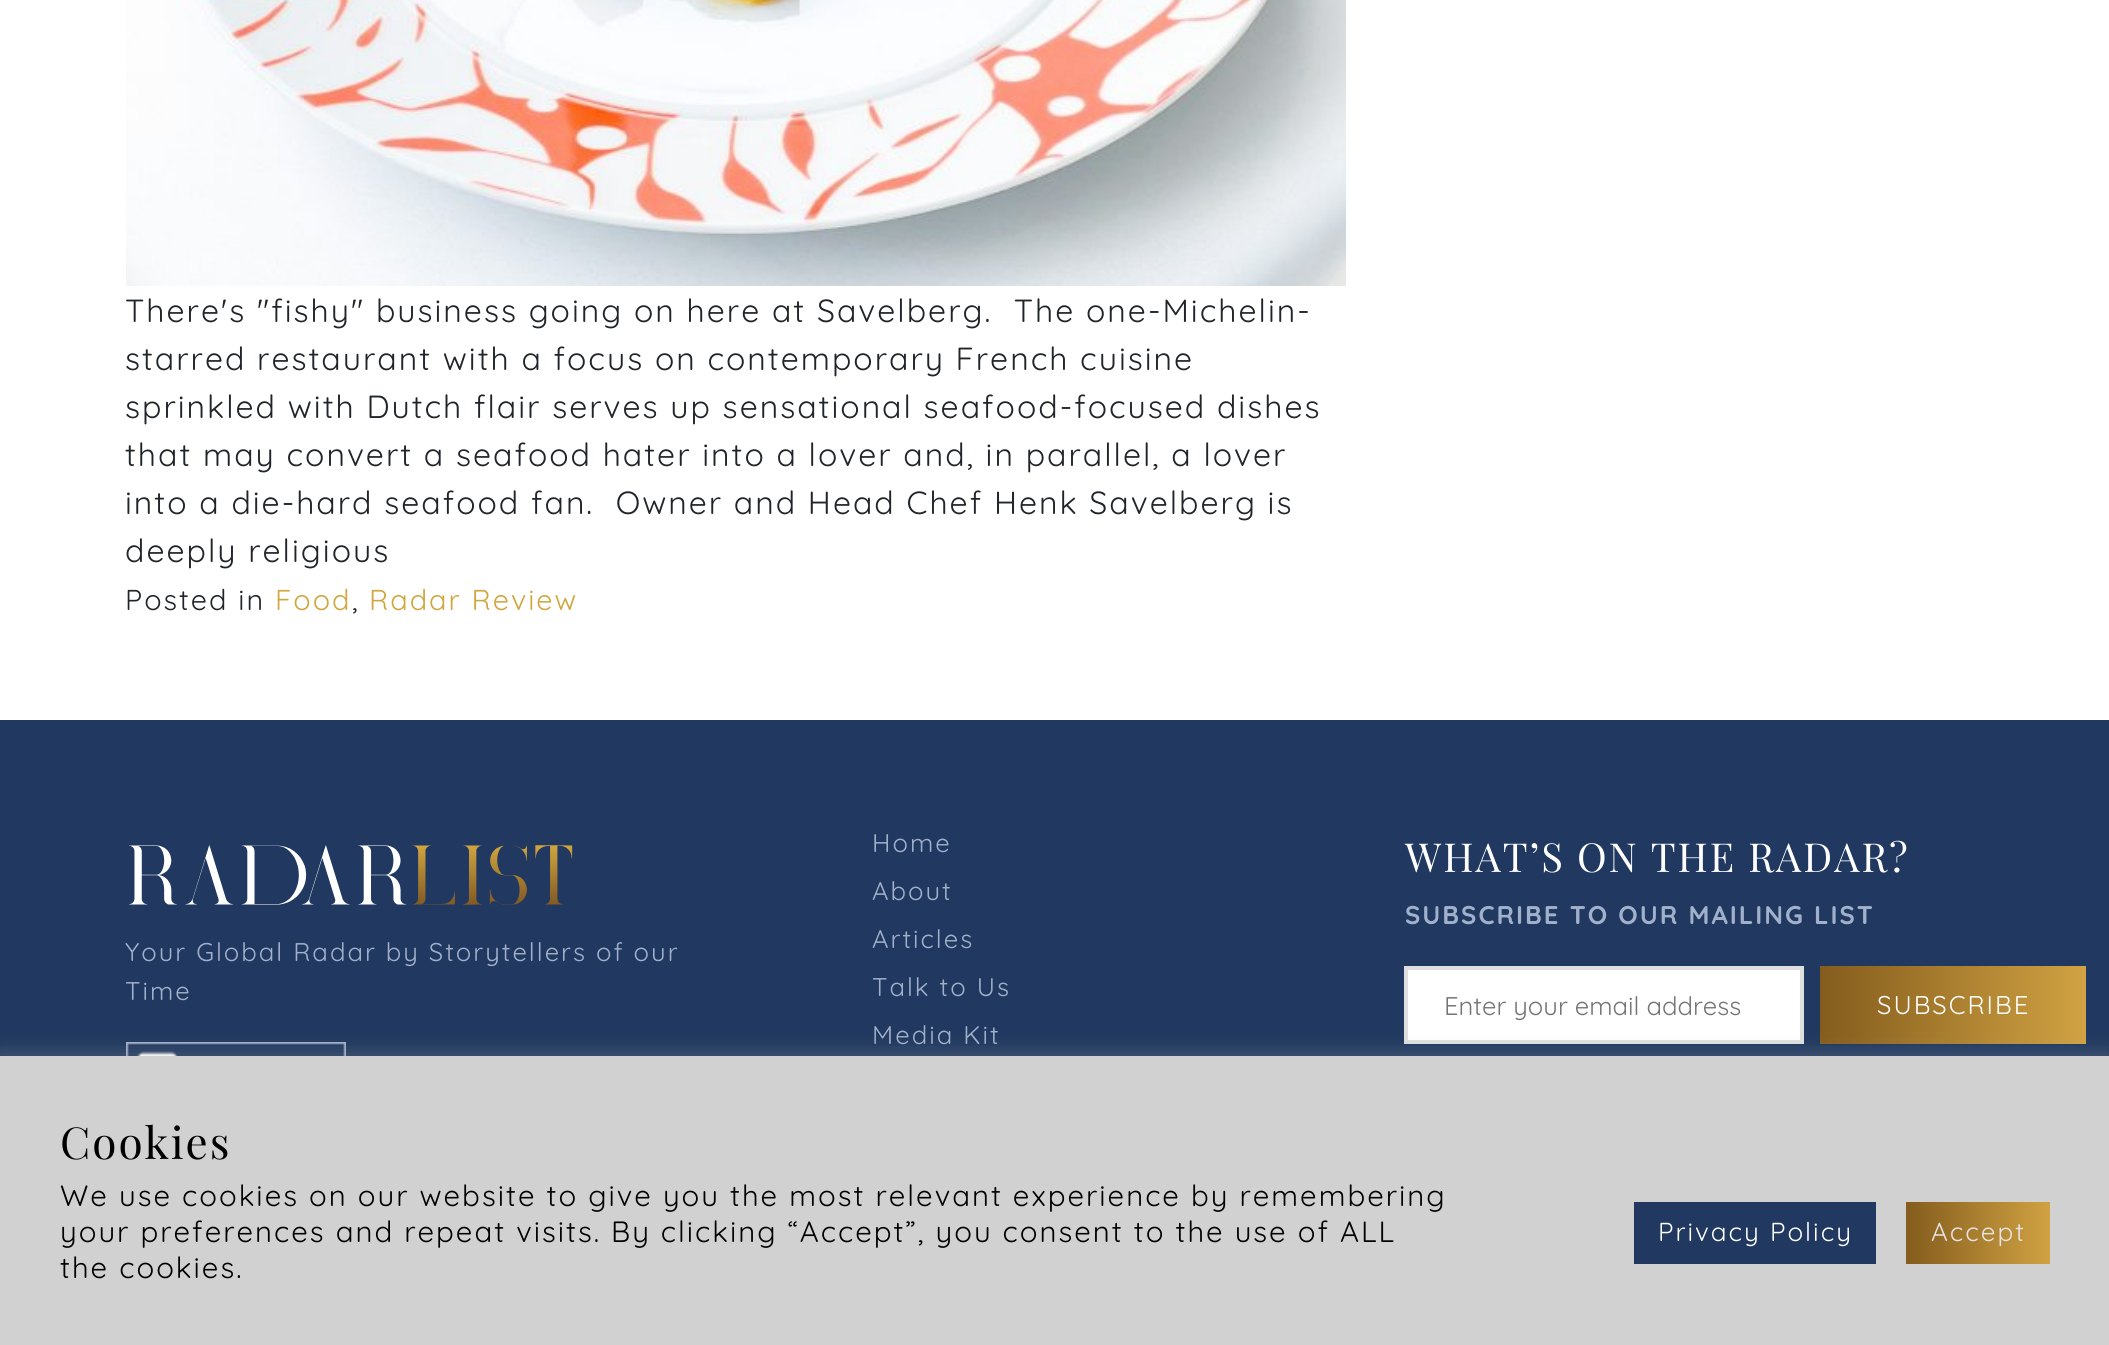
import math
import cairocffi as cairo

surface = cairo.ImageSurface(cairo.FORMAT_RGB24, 2109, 1345)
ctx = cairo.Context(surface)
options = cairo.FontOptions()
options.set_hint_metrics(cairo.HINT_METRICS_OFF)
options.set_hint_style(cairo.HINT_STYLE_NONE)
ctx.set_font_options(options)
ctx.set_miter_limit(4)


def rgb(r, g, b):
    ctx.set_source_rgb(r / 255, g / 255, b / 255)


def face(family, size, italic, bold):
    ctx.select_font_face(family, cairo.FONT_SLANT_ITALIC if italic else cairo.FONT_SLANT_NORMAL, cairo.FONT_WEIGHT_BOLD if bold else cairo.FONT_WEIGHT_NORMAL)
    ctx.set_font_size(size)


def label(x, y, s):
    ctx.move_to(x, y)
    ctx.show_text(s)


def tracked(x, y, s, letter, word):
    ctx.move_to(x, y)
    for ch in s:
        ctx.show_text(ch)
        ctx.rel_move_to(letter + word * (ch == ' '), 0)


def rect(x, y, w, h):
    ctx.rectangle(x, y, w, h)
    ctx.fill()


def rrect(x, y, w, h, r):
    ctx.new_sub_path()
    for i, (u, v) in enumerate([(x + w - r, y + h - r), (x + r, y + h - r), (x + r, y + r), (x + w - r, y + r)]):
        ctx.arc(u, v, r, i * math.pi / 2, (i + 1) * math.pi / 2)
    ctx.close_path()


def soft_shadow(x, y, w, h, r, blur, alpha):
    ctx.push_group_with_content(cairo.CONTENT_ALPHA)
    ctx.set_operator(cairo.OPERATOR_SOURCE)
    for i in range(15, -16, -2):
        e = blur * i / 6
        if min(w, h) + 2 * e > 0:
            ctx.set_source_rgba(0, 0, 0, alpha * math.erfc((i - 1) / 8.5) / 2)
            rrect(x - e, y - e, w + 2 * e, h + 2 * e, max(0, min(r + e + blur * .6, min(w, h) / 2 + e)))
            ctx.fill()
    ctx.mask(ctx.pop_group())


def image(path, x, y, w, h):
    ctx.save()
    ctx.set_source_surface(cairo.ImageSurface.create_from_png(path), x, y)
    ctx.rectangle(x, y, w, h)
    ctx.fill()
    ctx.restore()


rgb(255, 255, 255)
ctx.paint()
image('image0.png', 126, 0, 1220, 286)
face('Quicksand', 32, 0, 0)
rgb(33, 37, 41)
tracked(125, 322, 'There\'s "fishy" business going on here at Savelberg.  The one-Michelin-', 2, 0)
tracked(125, 370, 'starred restaurant with a focus on contemporary French cuisine', 2, 0)
tracked(125, 418, 'sprinkled with Dutch flair serves up sensational seafood-focused dishes', 2, 0)
tracked(125, 466, 'that may convert a seafood hater into a lover and, in parallel, a lover', 2, 0)
tracked(125, 514, 'into a die-hard seafood fan.  Owner and Head Chef Henk Savelberg is', 2, 0)
tracked(125, 562, 'deeply religious', 2, 0)
face('Quicksand', 28.75, 0, 0)
tracked(125, 610, 'Posted in', 2, 0)
rgb(208, 167, 62)
tracked(275, 610, 'Food', 2, 0)
rgb(33, 37, 41)
tracked(352, 610, ',', 2, 0)
rgb(208, 167, 62)
tracked(369, 610, 'Radar Review', 2, 0)
rgb(33, 57, 96)
rect(0, 720, 2109, 336)
image('image1.png', 129, 845, 444, 60)
face('Quicksand', 25.6, 0, 0)
rgb(162, 177, 203)
tracked(125, 961, 'Your Global Radar by Storytellers of our', 2, 0)
tracked(125, 1000, 'Time', 2, 0)
image('image2.png', 126, 1042, 220, 14)
tracked(872, 852, 'Home', 2, 0)
tracked(872, 900, 'About', 2, 0)
tracked(872, 948, 'Articles', 2, 0)
tracked(872, 996, 'Talk to Us', 2, 0)
tracked(872, 1044, 'Media Kit', 2, 0)
face('Playfair Display', 40, 0, 0)
rgb(255, 255, 255)
tracked(1405, 872, 'WHAT’S ON THE RADAR?', 2, 0)
face('Quicksand', 25.6, 0, 1)
rgb(162, 177, 203)
tracked(1405, 924, 'SUBSCRIBE TO OUR MAILING LIST', 2, 0)
rgb(255, 255, 255)
ctx.rectangle(1406, 968, 396, 74)
ctx.fill_preserve()
rgb(223, 223, 223)
ctx.set_line_width(4)
ctx.stroke()
face('Quicksand', 25.6, 0, 0)
rgb(117, 117, 117)
label(1444, 1015, 'Enter your email address')
gradient = cairo.LinearGradient(1820, 1005, 2086, 1005)
gradient.add_color_stop_rgba(0, 0.518, 0.361, 0.114, 1)
gradient.add_color_stop_rgba(1, 0.816, 0.635, 0.259, 1)
gradient.add_color_stop_rgba(1, 0.518, 0.361, 0.114, 1)
ctx.set_source(gradient)
rect(1820, 966, 266, 78)
rgb(255, 255, 255)
tracked(1877, 1014, 'SUBSCRIBE', 2, 0)
rgb(172, 171, 171)
soft_shadow(0, 1054, 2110, 290, 0, 10, 0.3)
rgb(209, 209, 209)
rect(0, 1056, 2109, 289)
face('Playfair Display', 44, 0, 0)
rgb(0, 0, 0)
tracked(60, 1159, 'Cookies', 2, 0)
face('Quicksand', 29.35, 0, 0)
tracked(60, 1206, 'We use cookies on our website to give you the most relevant experience by remembering', 2, 0)
tracked(60, 1242, 'your preferences and repeat visits. By clicking “Accept”, you consent to the use of ALL', 2, 0)
tracked(60, 1278, 'the cookies.', 2, 0)
rgb(33, 57, 96)
rect(1634, 1202, 242, 62)
face('Quicksand', 26, 0, 0)
rgb(255, 255, 255)
tracked(1658, 1241, 'Privacy Policy', 2, 0)
gradient = cairo.LinearGradient(1906, 1233, 2050, 1233)
gradient.add_color_stop_rgba(0, 0.518, 0.361, 0.114, 1)
gradient.add_color_stop_rgba(1, 0.816, 0.635, 0.259, 1)
gradient.add_color_stop_rgba(1, 0.518, 0.361, 0.114, 1)
ctx.set_source(gradient)
rect(1906, 1202, 144, 62)
rgb(229, 229, 229)
tracked(1931, 1241, 'Accept', 2, 0)
surface.write_to_png('render.png')
